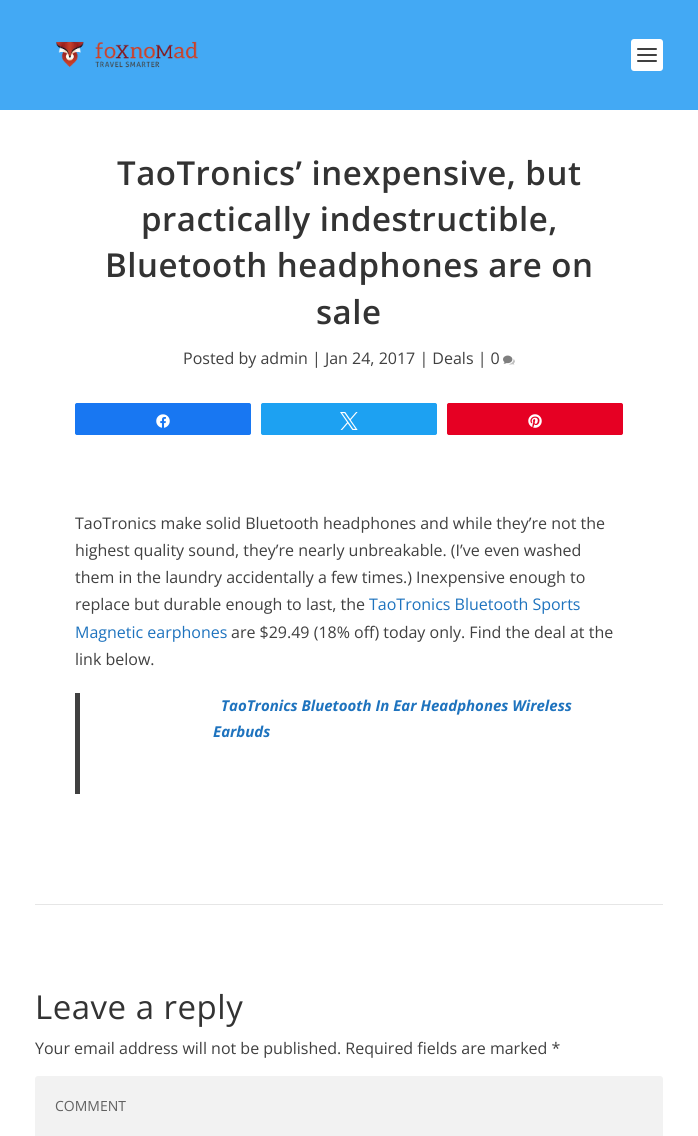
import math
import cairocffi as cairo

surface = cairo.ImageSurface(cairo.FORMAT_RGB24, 698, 1136)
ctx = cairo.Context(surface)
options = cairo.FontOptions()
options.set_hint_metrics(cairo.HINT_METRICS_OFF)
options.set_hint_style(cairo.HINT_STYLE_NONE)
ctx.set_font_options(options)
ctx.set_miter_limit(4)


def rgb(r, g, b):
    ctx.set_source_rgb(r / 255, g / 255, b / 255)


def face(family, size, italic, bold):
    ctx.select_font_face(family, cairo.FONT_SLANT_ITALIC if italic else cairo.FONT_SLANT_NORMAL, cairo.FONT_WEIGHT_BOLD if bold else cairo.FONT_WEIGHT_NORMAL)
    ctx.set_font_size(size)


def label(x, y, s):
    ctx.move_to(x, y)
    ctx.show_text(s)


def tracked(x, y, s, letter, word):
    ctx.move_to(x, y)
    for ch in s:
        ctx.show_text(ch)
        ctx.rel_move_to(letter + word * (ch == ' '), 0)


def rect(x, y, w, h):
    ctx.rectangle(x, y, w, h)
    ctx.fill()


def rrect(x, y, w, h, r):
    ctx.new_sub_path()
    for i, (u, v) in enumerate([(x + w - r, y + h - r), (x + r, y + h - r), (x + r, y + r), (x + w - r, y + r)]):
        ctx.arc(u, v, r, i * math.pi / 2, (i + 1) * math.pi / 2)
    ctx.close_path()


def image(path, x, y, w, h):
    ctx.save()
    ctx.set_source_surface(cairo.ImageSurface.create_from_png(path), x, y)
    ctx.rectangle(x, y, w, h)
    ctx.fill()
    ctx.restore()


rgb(255, 255, 255)
ctx.paint()
rgb(67, 169, 244)
rect(0, 0, 698, 110)
image('image0.png', 56, 41, 142, 27)
rgb(255, 255, 255)
rrect(631, 39, 32, 32, 3)
ctx.fill()
rgb(64, 64, 64)
rrect(637, 48, 20, 2, 1)
ctx.fill()
rrect(637, 54, 20, 2, 1)
ctx.fill()
rrect(637, 60, 20, 2, 1)
ctx.fill()
face('Open Sans SemiBold', 33, 0, 0)
rgb(51, 51, 51)
tracked(117, 185, 'TaoTronics’ inexpensive, but', 0.5, 0)
tracked(141, 231, 'practically indestructible,', 0.5, 0)
tracked(105, 277, 'Bluetooth headphones are on', 0.5, 0)
tracked(316, 324, 'sale', 0.5, 0)
face('Open Sans', 16, 0, 0)
rgb(64, 64, 64)
label(183, 364, 'Posted by admin | Jan 24, 2017 | Deals | 0')
image('image1.png', 503, 355, 12, 10)
rgb(24, 119, 242)
rrect(75.5, 403.5, 175, 31, 1.5)
ctx.fill_preserve()
ctx.set_line_width(1)
ctx.stroke()
image('image2.png', 156, 414, 14, 14)
rgb(29, 161, 242)
rrect(261.5, 403.5, 175, 31, 1.5)
ctx.fill_preserve()
ctx.stroke()
image('image3.png', 340, 412, 18, 18)
rgb(230, 0, 35)
rrect(447.5, 403.5, 175, 31, 1.5)
ctx.fill_preserve()
ctx.stroke()
image('image4.png', 528, 414, 14, 14)
rgb(64, 64, 64)
label(75, 529, 'TaoTronics make solid Bluetooth headphones and while they’re not the')
label(75, 556, 'highest quality sound, they’re nearly unbreakable. (I’ve even washed')
label(75, 583, 'them in the laundry accidentally a few times.) Inexpensive enough to')
label(75, 610, 'replace but durable enough to last, the')
rgb(30, 115, 190)
label(369, 610, 'TaoTronics Bluetooth Sports')
label(75, 638, 'Magnetic earphones')
rgb(64, 64, 64)
label(231, 638, 'are $29.49 (18% off) today only. Find the deal at the')
label(75, 665, 'link below.')
rect(75, 693, 5, 101)
face('Open Sans', 15, 1, 1)
rgb(30, 115, 190)
label(221, 711, 'TaoTronics Bluetooth In Ear Headphones Wireless')
label(213, 737, 'Earbuds')
rgb(230, 230, 230)
rect(35, 904, 628, 1)
face('Open Sans', 33, 0, 0)
rgb(51, 51, 51)
tracked(35, 1019, 'Leave a reply', 0.5, 0)
face('Open Sans', 16, 0, 0)
rgb(64, 64, 64)
label(35, 1054, 'Your email address will not be published. Required fields are marked *')
rgb(242, 242, 242)
rrect(35, 1076, 628, 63, 3)
ctx.fill()
face('Open Sans', 14, 0, 0)
rgb(97, 97, 97)
label(55, 1111, 'COMMENT')
surface.write_to_png('render.png')
